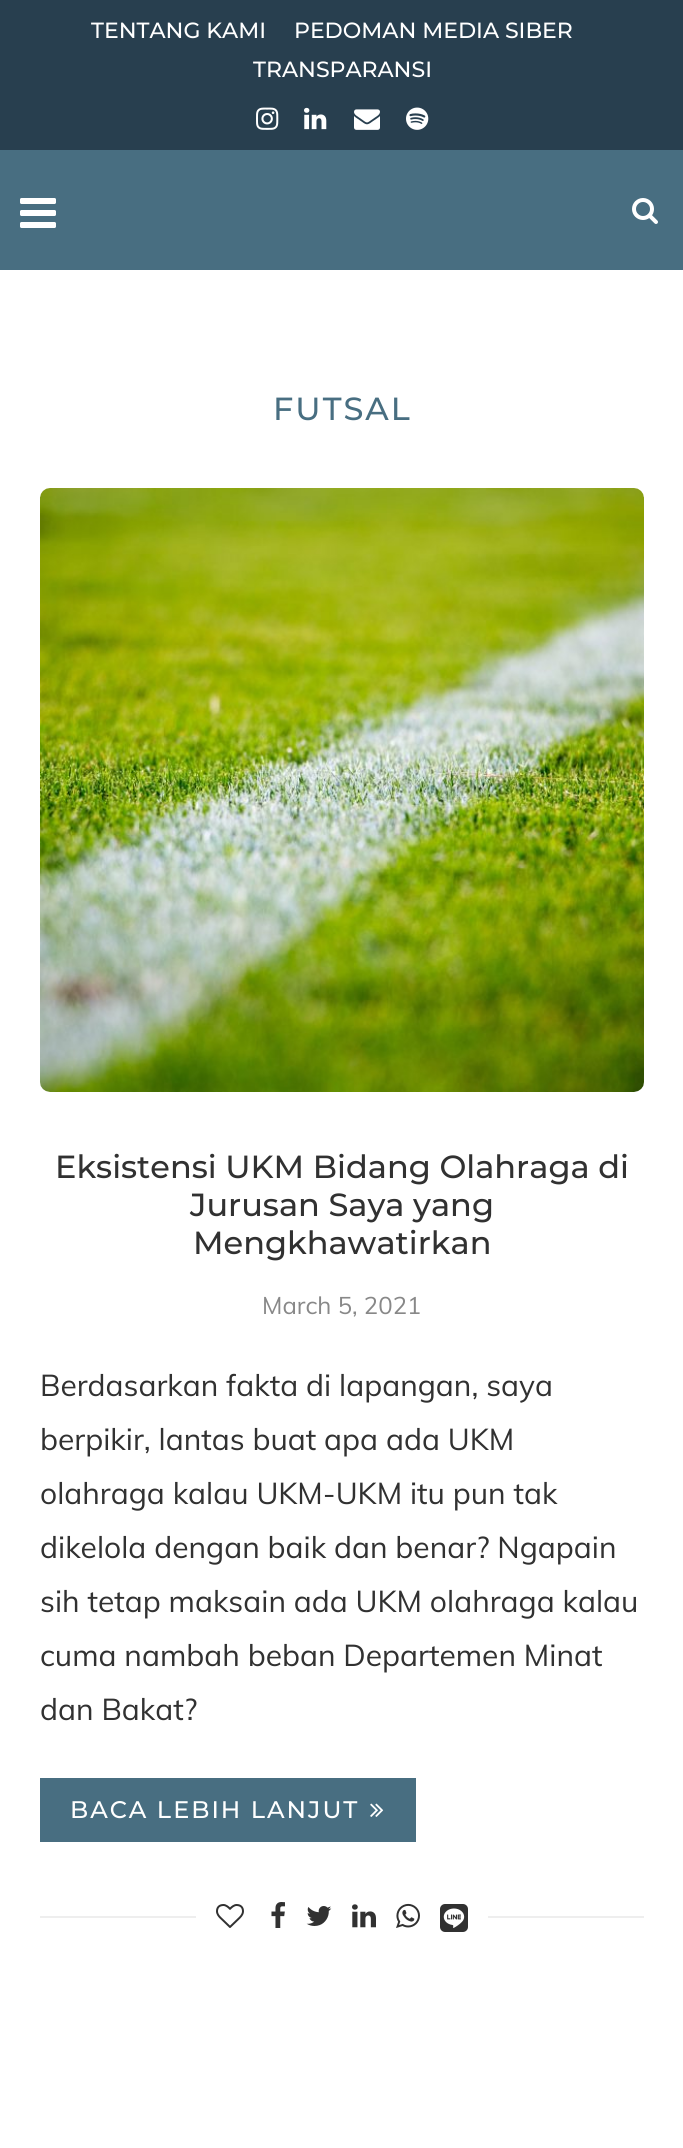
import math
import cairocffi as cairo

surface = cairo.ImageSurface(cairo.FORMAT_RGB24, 683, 2148)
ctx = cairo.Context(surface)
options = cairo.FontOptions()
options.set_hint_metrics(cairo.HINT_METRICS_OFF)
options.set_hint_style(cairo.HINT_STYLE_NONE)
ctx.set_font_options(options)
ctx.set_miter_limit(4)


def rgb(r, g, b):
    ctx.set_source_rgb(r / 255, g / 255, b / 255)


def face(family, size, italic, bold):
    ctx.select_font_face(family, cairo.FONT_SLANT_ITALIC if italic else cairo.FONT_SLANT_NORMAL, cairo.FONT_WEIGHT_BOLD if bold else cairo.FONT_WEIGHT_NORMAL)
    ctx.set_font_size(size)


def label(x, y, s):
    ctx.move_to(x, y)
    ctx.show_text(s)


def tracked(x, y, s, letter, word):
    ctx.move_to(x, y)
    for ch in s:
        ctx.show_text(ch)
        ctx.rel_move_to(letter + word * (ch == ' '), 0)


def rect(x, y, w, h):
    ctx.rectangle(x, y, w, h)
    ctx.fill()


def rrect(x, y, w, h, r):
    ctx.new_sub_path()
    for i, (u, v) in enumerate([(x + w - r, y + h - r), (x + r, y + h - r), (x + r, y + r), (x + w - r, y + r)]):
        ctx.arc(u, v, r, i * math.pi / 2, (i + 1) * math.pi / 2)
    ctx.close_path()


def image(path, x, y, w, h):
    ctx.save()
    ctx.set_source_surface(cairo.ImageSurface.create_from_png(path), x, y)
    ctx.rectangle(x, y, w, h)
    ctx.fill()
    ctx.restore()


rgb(255, 255, 255)
ctx.paint()
rgb(40, 63, 79)
rect(0, 0, 683, 150)
face('Montserrat Medium', 22, 0, 0)
rgb(255, 255, 255)
label(91, 38, 'TENTANG KAMI')
label(294, 38, 'PEDOMAN MEDIA SIBER')
label(253, 77, 'TRANSPARANSI')
image('image0.png', 256, 107, 23, 23)
image('image1.png', 304, 107, 23, 23)
image('image2.png', 354, 109, 26, 21)
image('image3.png', 406, 107, 23, 23)
rgb(72, 110, 129)
rect(0, 150, 683, 120)
image('image4.png', 20, 198, 36, 30)
image('image5.png', 632, 198, 26, 26)
face('Montserrat Medium', 32, 0, 0)
tracked(273, 420, 'FUTSAL', 2, 0)
rgb(245, 245, 245)
rrect(40, 488, 604, 604, 10)
ctx.fill()
image('image6.png', 40, 488, 604, 604)
rgb(49, 49, 49)
label(55, 1178, 'Eksistensi UKM Bidang Olahraga di')
label(190, 1216, 'Jurusan Saya yang')
label(193, 1254, 'Mengkhawatirkan')
face('Muli', 24, 0, 0)
rgb(136, 136, 136)
label(262, 1314, 'March 5, 2021')
face('Muli', 30, 0, 0)
rgb(49, 49, 49)
label(40, 1396, 'Berdasarkan fakta di lapangan, saya')
label(40, 1450, 'berpikir, lantas buat apa ada UKM')
label(40, 1504, 'olahraga kalau UKM-UKM itu pun tak')
label(40, 1558, 'dikelola dengan baik dan benar? Ngapain')
label(40, 1612, 'sih tetap maksain ada UKM olahraga kalau')
label(40, 1666, 'cuma nambah beban Departemen Minat')
label(40, 1720, 'dan Bakat?')
rgb(72, 110, 129)
rect(40, 1778, 376, 64)
face('Montserrat Medium', 24, 0, 0)
rgb(255, 255, 255)
tracked(70, 1818, 'BACA LEBIH LANJUT', 2, 0)
image('image7.png', 370, 1803, 14, 14)
rgb(238, 238, 238)
rect(40, 1916, 604, 2)
rgb(255, 255, 255)
rect(196, 1916, 292, 2)
image('image8.png', 216, 1904, 28, 24)
image('image9.png', 271, 1902, 14, 26)
image('image10.png', 306, 1906, 26, 20)
image('image11.png', 352, 1904, 24, 24)
image('image12.png', 396, 1903, 24, 25)
image('image13.png', 440, 1904, 28, 28)
surface.write_to_png('render.png')
